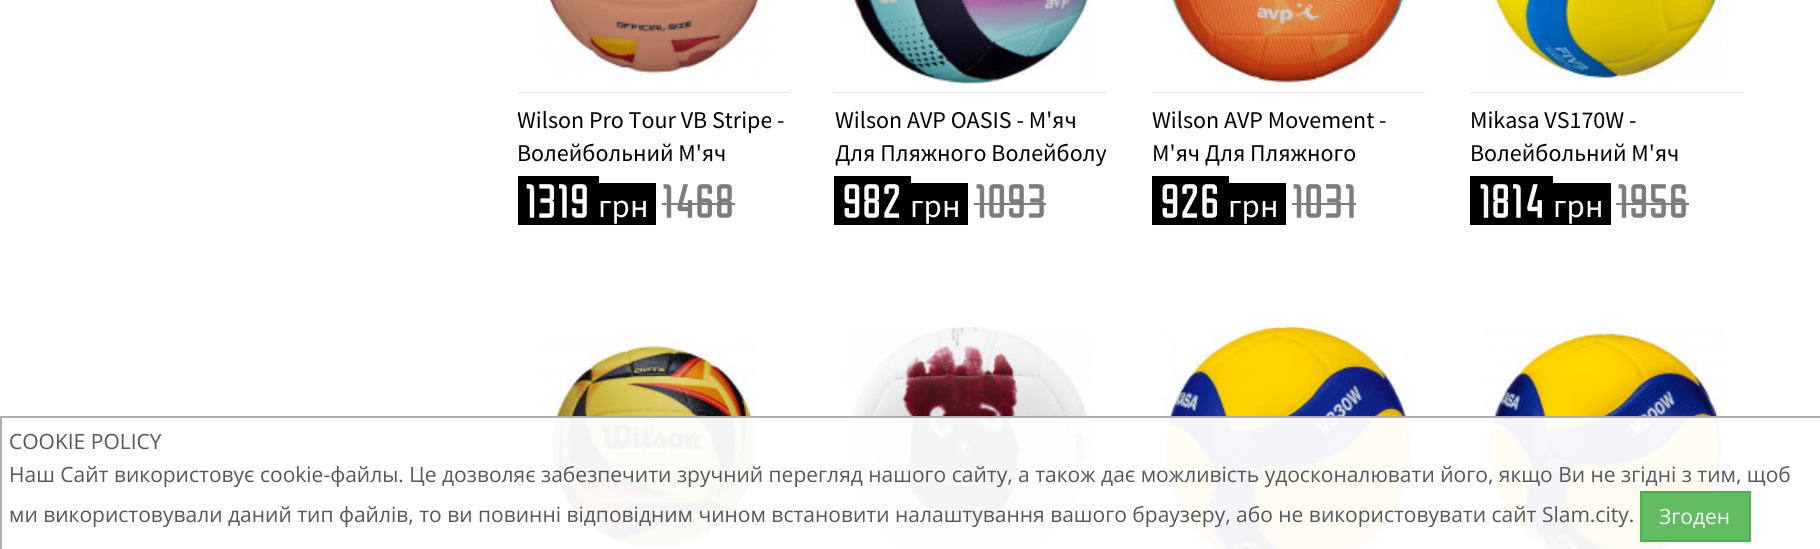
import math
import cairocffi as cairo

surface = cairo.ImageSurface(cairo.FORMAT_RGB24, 1820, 549)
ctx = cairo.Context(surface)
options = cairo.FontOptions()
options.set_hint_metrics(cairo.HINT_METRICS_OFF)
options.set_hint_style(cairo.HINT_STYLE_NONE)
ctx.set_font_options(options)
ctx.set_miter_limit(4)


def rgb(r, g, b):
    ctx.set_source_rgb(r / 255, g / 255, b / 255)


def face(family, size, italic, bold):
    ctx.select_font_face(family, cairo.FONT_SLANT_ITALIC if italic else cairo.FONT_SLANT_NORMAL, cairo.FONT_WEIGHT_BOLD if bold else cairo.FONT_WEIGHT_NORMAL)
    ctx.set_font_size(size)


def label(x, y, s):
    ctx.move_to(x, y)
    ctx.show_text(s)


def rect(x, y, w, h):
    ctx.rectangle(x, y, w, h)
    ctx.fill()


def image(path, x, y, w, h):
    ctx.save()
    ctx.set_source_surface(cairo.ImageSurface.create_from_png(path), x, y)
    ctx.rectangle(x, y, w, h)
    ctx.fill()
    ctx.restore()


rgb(255, 255, 255)
ctx.paint()
image('image0.png', 541, 0, 229, 79)
rgb(229, 229, 229)
rect(518, 92, 271, 1)
ctx.save()
ctx.rectangle(518, 102, 271, 68)
ctx.clip()
face('Source Sans Pro', 24, 0, 0)
rgb(0, 0, 0)
label(517, 128, 'Wilson Pro Tour VB Stripe')
ctx.restore()
face('Source Sans Pro', 24, 0, 0)
rgb(0, 0, 0)
label(777, 128, '-')
label(517, 161, 'Волейбольний М\'яч')
rgb(1, 1, 1)
rect(518, 176, 81, 49)
face('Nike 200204', 33, 0, 0)
rgb(255, 255, 255)
label(524, 217, '1319')
rgb(1, 1, 1)
rect(599, 183, 57, 42)
face('Source Sans Pro', 33, 0, 0)
rgb(255, 255, 255)
label(598, 217, 'грн')
face('Nike 200204', 33, 0, 0)
rgb(124, 124, 124)
label(661, 217, '1468')
rect(662, 203, 73, 2)
image('image1.png', 846, 0, 246, 84)
rgb(229, 229, 229)
rect(834, 92, 273, 1)
face('Source Sans Pro', 24, 0, 0)
rgb(0, 0, 0)
label(835, 128, 'Wilson AVP OASIS - М\'яч')
label(835, 161, 'Для Пляжного Волейболу')
rgb(1, 1, 1)
rect(834, 176, 77, 49)
face('Nike 200204', 33, 0, 0)
rgb(255, 255, 255)
label(842, 217, '982')
rgb(1, 1, 1)
rect(911, 183, 57, 42)
face('Source Sans Pro', 33, 0, 0)
rgb(255, 255, 255)
label(910, 217, 'грн')
face('Nike 200204', 33, 0, 0)
rgb(124, 124, 124)
label(974, 217, '1093')
rect(974, 203, 72, 2)
image('image2.png', 1164, 0, 240, 83)
rgb(229, 229, 229)
rect(1152, 92, 273, 1)
face('Source Sans Pro', 24, 0, 0)
rgb(0, 0, 0)
label(1152, 128, 'Wilson AVP Movement -')
label(1152, 161, 'М\'яч Для Пляжного')
rgb(1, 1, 1)
rect(1152, 176, 77, 49)
face('Nike 200204', 33, 0, 0)
rgb(255, 255, 255)
label(1160, 217, '926')
rgb(1, 1, 1)
rect(1229, 183, 57, 42)
face('Source Sans Pro', 33, 0, 0)
rgb(255, 255, 255)
label(1228, 217, 'грн')
face('Nike 200204', 33, 0, 0)
rgb(124, 124, 124)
label(1291, 217, '1031')
rect(1292, 203, 64, 2)
image('image3.png', 1494, 0, 228, 80)
rgb(229, 229, 229)
rect(1470, 92, 273, 1)
face('Source Sans Pro', 24, 0, 0)
rgb(0, 0, 0)
label(1470, 128, 'Mikasa VS170W -')
label(1470, 161, 'Волейбольний М\'яч')
rgb(1, 1, 1)
rect(1470, 176, 83, 49)
face('Nike 200204', 33, 0, 0)
rgb(255, 255, 255)
label(1478, 217, '1814')
rgb(1, 1, 1)
rect(1553, 183, 58, 42)
face('Source Sans Pro', 33, 0, 0)
rgb(255, 255, 255)
label(1553, 217, 'грн')
face('Nike 200204', 33, 0, 0)
rgb(124, 124, 124)
label(1616, 217, '1956')
rect(1616, 203, 73, 2)
image('image4.png', 542, 339, 215, 210)
image('image5.png', 846, 326, 249, 223)
image('image6.png', 1164, 326, 252, 223)
image('image7.png', 1482, 327, 241, 222)
ctx.set_source_rgba(1, 1, 1, 0.95)
rect(542, 416, 1181, 133)
ctx.set_source_rgba(0.667, 0.667, 0.667, 0.95)
rect(0, 416, 1820, 2)
rgb(174, 174, 174)
rect(0, 416, 2, 133)
face('Open Sans', 21, 0, 0)
rgb(87, 87, 87)
label(9, 449, 'COOKIE POLICY')
label(9, 482, 'Наш Сайт використовує cookie-файлы. Це дозволяє забезпечити зручний перегляд нашого сайту, а також дає можливість удосконалювати його, якщо Ви не згідні з тим, щоб')
label(9, 522, 'ми використовували даний тип файлів, то ви повинні відповідним чином встановити налаштування вашого браузеру, або не використовувати сайт Slam.city.')
ctx.set_source_rgba(0.361, 0.722, 0.361, 0.95)
ctx.rectangle(1641, 492, 109, 49)
ctx.fill_preserve()
rgb(77, 175, 77)
ctx.stroke()
rgb(247, 252, 247)
label(1659, 524, 'Згоден')
surface.write_to_png('render.png')
